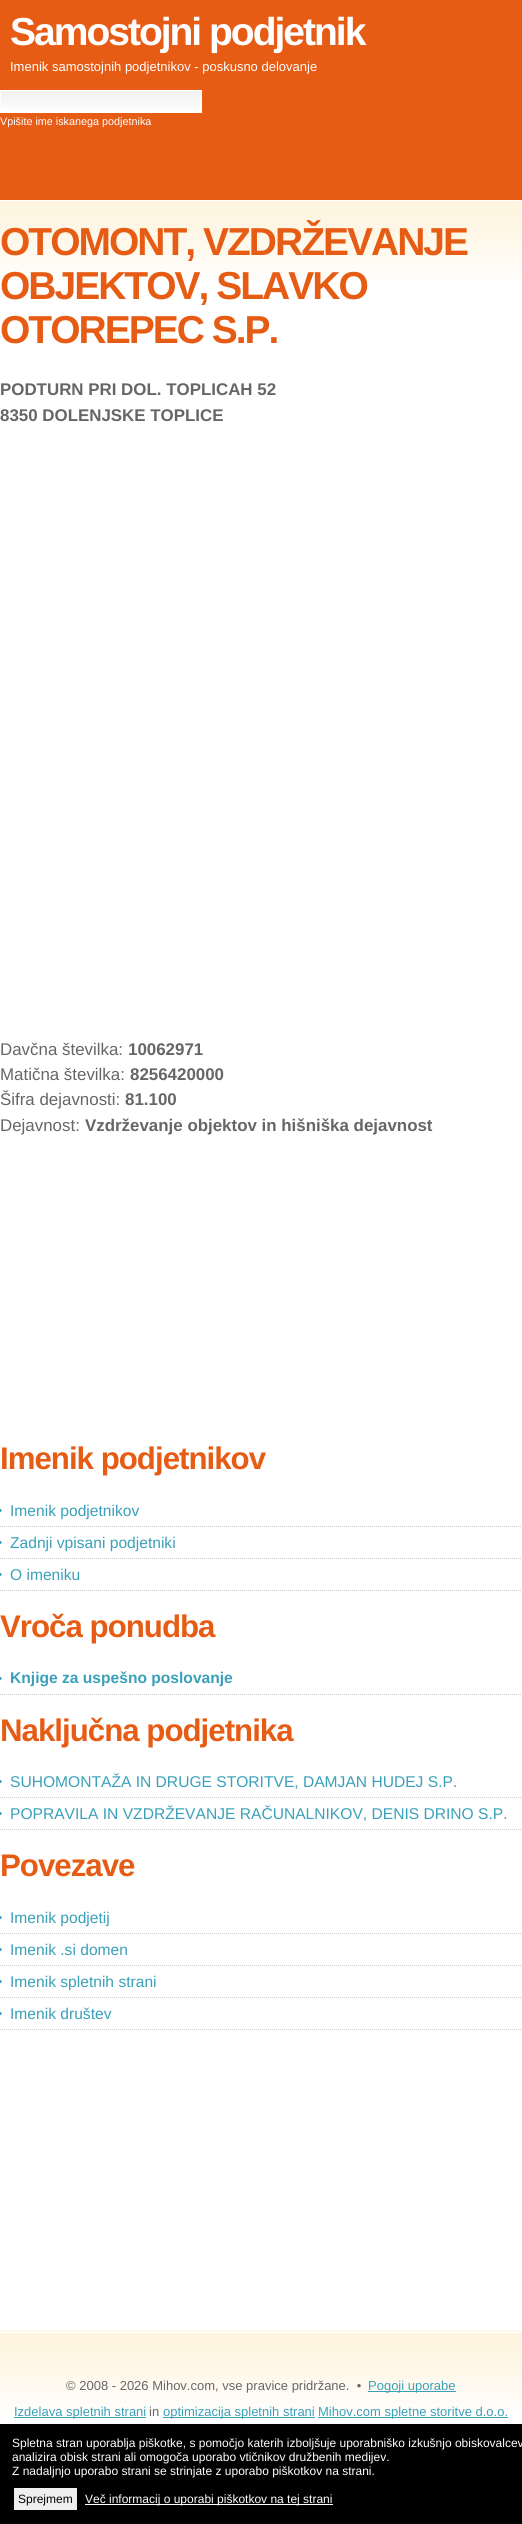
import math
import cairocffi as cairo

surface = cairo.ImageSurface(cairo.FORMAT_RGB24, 522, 2524)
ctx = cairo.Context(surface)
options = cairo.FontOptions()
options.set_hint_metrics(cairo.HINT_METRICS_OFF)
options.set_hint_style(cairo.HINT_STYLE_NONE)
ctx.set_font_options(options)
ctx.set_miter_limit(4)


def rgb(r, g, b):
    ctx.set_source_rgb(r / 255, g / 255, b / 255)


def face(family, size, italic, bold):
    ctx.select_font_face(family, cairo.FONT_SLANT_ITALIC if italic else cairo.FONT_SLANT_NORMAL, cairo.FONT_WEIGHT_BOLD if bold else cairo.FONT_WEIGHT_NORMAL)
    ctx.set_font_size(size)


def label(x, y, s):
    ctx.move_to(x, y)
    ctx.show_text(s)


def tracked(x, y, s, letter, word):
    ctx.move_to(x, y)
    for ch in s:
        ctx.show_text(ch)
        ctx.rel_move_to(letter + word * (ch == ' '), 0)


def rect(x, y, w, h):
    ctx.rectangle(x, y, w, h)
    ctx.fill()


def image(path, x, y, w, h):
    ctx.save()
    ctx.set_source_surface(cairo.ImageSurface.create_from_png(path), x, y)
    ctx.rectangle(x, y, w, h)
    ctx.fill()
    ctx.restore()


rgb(255, 255, 255)
ctx.paint()
image('image0.png', 0, 0, 522, 280)
face('Liberation Sans', 39, 0, 1)
rgb(255, 255, 255)
tracked(10, 45, 'Samostojni podjetnik', -2, 0)
face('Liberation Sans', 13, 0, 0)
label(10, 71, 'Imenik samostojnih podjetnikov - poskusno delovanje')
rect(1, 108, 200, 4)
image('image1.png', 1, 91, 200, 17)
ctx.rectangle(0.5, 90.5, 201, 22)
ctx.set_line_width(1)
ctx.stroke()
face('Liberation Sans', 10.8, 0, 0)
label(0, 125, 'Vpišite ime iskanega podjetnika')
face('Liberation Sans', 39, 0, 1)
rgb(231, 92, 20)
tracked(0, 255, 'OTOMONT, VZDRŽEVANJE', -2, 0)
tracked(0, 299, 'OBJEKTOV, SLAVKO', -2, 0)
tracked(0, 343, 'OTOREPEC S.P.', -2, 0)
face('Liberation Sans', 16.9, 0, 1)
rgb(102, 102, 102)
label(0, 395, 'PODTURN PRI DOL. TOPLICAH 52')
label(0, 421, '8350 DOLENJSKE TOPLICE')
face('Liberation Sans', 16.9, 0, 0)
label(0, 1055, 'Davčna številka:')
face('Liberation Sans', 16.9, 0, 1)
label(128, 1055, '10062971')
face('Liberation Sans', 16.9, 0, 0)
label(0, 1080, 'Matična številka:')
face('Liberation Sans', 16.9, 0, 1)
label(130, 1080, '8256420000')
face('Liberation Sans', 16.9, 0, 0)
label(0, 1105, 'Šifra dejavnosti:')
face('Liberation Sans', 16.9, 0, 1)
label(125, 1105, '81.100')
face('Liberation Sans', 16.9, 0, 0)
label(0, 1131, 'Dejavnost:')
face('Liberation Sans', 16.9, 0, 1)
label(85, 1131, 'Vzdrževanje objektov in hišniška dejavnost')
face('Liberation Sans', 31.25, 0, 1)
rgb(231, 92, 20)
tracked(0, 1469, 'Imenik podjetnikov', -1, 0)
image('image2.png', 0, 1509, 2, 3)
ctx.new_path()
ctx.move_to(0, 1526.5)
ctx.line_to(522, 1526.5)
rgb(204, 204, 204)
ctx.set_dash([1, 1])
ctx.stroke()
face('Liberation Sans', 15.6, 0, 0)
rgb(58, 160, 185)
label(10, 1516, 'Imenik podjetnikov')
image('image2.png', 0, 1541, 2, 3)
ctx.new_path()
ctx.move_to(0, 1558.5)
ctx.line_to(522, 1558.5)
rgb(204, 204, 204)
ctx.stroke()
rgb(58, 160, 185)
label(10, 1548, 'Zadnji vpisani podjetniki')
image('image2.png', 0, 1573, 2, 3)
ctx.new_path()
ctx.move_to(0, 1590.5)
ctx.line_to(522, 1590.5)
rgb(204, 204, 204)
ctx.stroke()
rgb(58, 160, 185)
label(10, 1580, 'O imeniku')
face('Liberation Sans', 31.25, 0, 1)
rgb(231, 92, 20)
tracked(0, 1637, 'Vroča ponudba', -1, 0)
image('image2.png', 0, 1677, 2, 3)
ctx.new_path()
ctx.move_to(0, 1694.5)
ctx.line_to(522, 1694.5)
rgb(204, 204, 204)
ctx.stroke()
face('Liberation Sans', 15.6, 0, 1)
rgb(58, 160, 185)
label(10, 1683, 'Knjige za uspešno poslovanje')
face('Liberation Sans', 31.25, 0, 1)
rgb(231, 92, 20)
tracked(0, 1741, 'Naključna podjetnika', -1, 0)
image('image2.png', 0, 1780, 2, 3)
ctx.new_path()
ctx.move_to(0, 1797.5)
ctx.line_to(522, 1797.5)
rgb(204, 204, 204)
ctx.stroke()
face('Liberation Sans', 15.6, 0, 0)
rgb(58, 160, 185)
label(10, 1787, 'SUHOMONTAŽA IN DRUGE STORITVE, DAMJAN HUDEJ S.P.')
image('image2.png', 0, 1812, 2, 3)
ctx.new_path()
ctx.move_to(0, 1829.5)
ctx.line_to(522, 1829.5)
rgb(204, 204, 204)
ctx.stroke()
rgb(58, 160, 185)
label(10, 1819, 'POPRAVILA IN VZDRŽEVANJE RAČUNALNIKOV, DENIS DRINO S.P.')
face('Liberation Sans', 31.25, 0, 1)
rgb(231, 92, 20)
tracked(0, 1876, 'Povezave', -1, 0)
image('image2.png', 0, 1916, 2, 3)
ctx.new_path()
ctx.move_to(0, 1933.5)
ctx.line_to(522, 1933.5)
rgb(204, 204, 204)
ctx.stroke()
face('Liberation Sans', 15.6, 0, 0)
rgb(58, 160, 185)
label(10, 1923, 'Imenik podjetij')
image('image2.png', 0, 1948, 2, 3)
ctx.new_path()
ctx.move_to(0, 1965.5)
ctx.line_to(522, 1965.5)
rgb(204, 204, 204)
ctx.stroke()
rgb(58, 160, 185)
label(10, 1955, 'Imenik .si domen')
image('image2.png', 0, 1980, 2, 3)
ctx.new_path()
ctx.move_to(0, 1997.5)
ctx.line_to(522, 1997.5)
rgb(204, 204, 204)
ctx.stroke()
rgb(58, 160, 185)
label(10, 1987, 'Imenik spletnih strani')
image('image2.png', 0, 2012, 2, 3)
ctx.new_path()
ctx.move_to(0, 2029.5)
ctx.line_to(522, 2029.5)
rgb(204, 204, 204)
ctx.stroke()
rgb(58, 160, 185)
label(10, 2019, 'Imenik društev')
image('image3.png', 0, 2330, 522, 82)
face('Liberation Sans', 13, 0, 0)
rgb(102, 102, 102)
label(66, 2390, '© 2008 - 2026 Mihov.com, vse pravice pridržane.  •')
rgb(58, 160, 185)
rect(368, 2391, 88, 1)
label(368, 2390, 'Pogoji uporabe')
rect(14, 2417, 132, 1)
label(14, 2416, 'Izdelava spletnih strani')
rgb(102, 102, 102)
label(149, 2416, 'in')
rgb(58, 160, 185)
rect(163, 2417, 152, 1)
label(163, 2416, 'optimizacija spletnih strani')
rect(318, 2417, 190, 1)
label(318, 2416, 'Mihov.com spletne storitve d.o.o.')
rgb(0, 0, 0)
rect(0, 2424, 522, 100)
face('Liberation Sans', 12, 0, 0)
rgb(255, 255, 255)
label(12, 2447, 'Spletna stran uporablja piškotke, s pomočjo katerih izboljšuje uporabniško izkušnjo obiskovalcev')
label(12, 2461, 'analizira obisk strani ali omogoča uporabo vtičnikov družbenih medijev.')
label(12, 2475, 'Z nadaljnjo uporabo strani se strinjate z uporabo piškotkov na strani.')
rgb(239, 239, 239)
rect(14, 2488, 63, 22)
rgb(0, 0, 0)
label(18, 2503, 'Sprejmem')
rgb(255, 255, 255)
rect(85, 2504, 248, 1)
label(85, 2503, 'Več informacij o uporabi piškotkov na tej strani')
surface.write_to_png('render.png')
